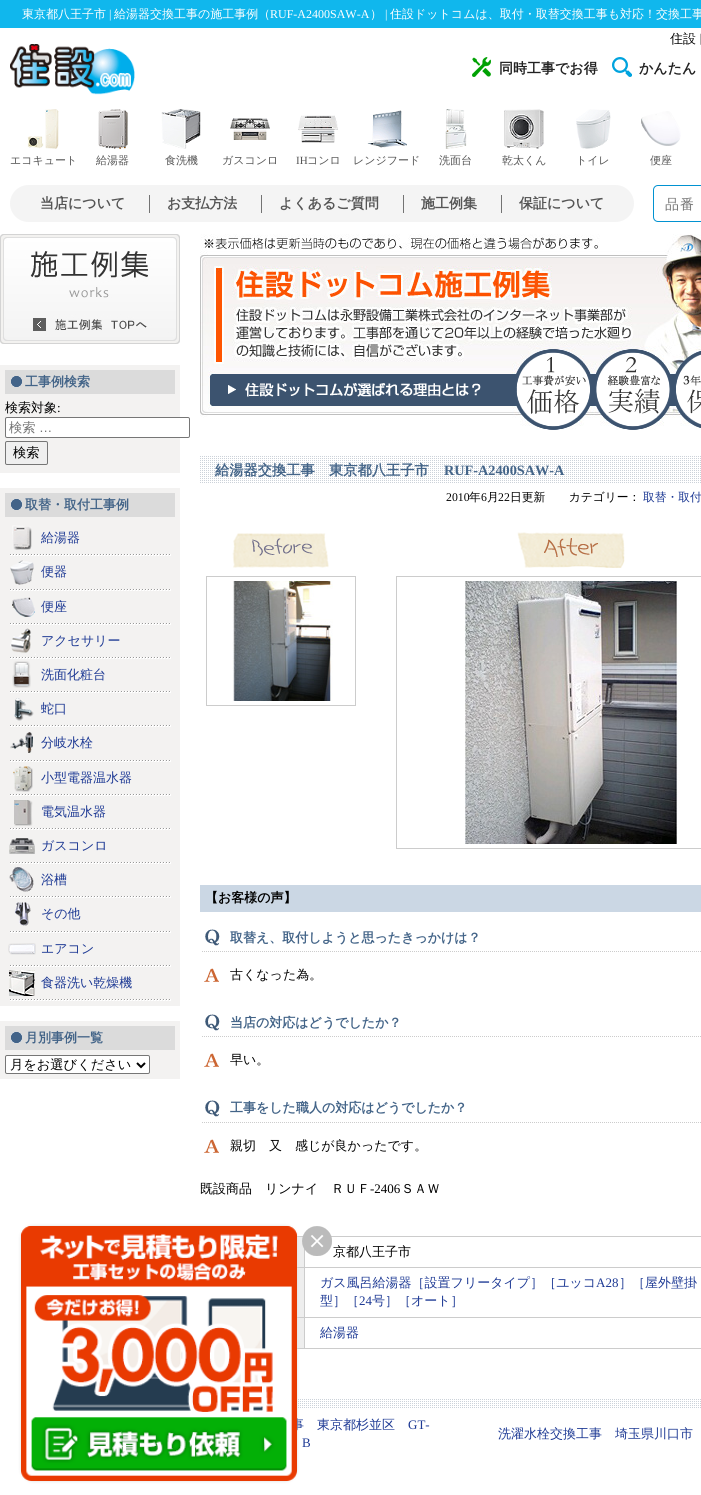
import math
import cairocffi as cairo

surface = cairo.ImageSurface(cairo.FORMAT_RGB24, 701, 1495)
ctx = cairo.Context(surface)
options = cairo.FontOptions()
options.set_hint_metrics(cairo.HINT_METRICS_OFF)
options.set_hint_style(cairo.HINT_STYLE_NONE)
ctx.set_font_options(options)
ctx.set_miter_limit(4)


def rgb(r, g, b):
    ctx.set_source_rgb(r / 255, g / 255, b / 255)


def face(family, size, italic, bold):
    ctx.select_font_face(family, cairo.FONT_SLANT_ITALIC if italic else cairo.FONT_SLANT_NORMAL, cairo.FONT_WEIGHT_BOLD if bold else cairo.FONT_WEIGHT_NORMAL)
    ctx.set_font_size(size)


def label(x, y, s):
    ctx.move_to(x, y)
    ctx.show_text(s)


def tracked(x, y, s, letter, word):
    ctx.move_to(x, y)
    for ch in s:
        ctx.show_text(ch)
        ctx.rel_move_to(letter + word * (ch == ' '), 0)


def rect(x, y, w, h):
    ctx.rectangle(x, y, w, h)
    ctx.fill()


def rrect(x, y, w, h, r):
    ctx.new_sub_path()
    for i, (u, v) in enumerate([(x + w - r, y + h - r), (x + r, y + h - r), (x + r, y + r), (x + w - r, y + r)]):
        ctx.arc(u, v, r, i * math.pi / 2, (i + 1) * math.pi / 2)
    ctx.close_path()


def soft_shadow(x, y, w, h, r, blur, alpha):
    ctx.push_group_with_content(cairo.CONTENT_ALPHA)
    ctx.set_operator(cairo.OPERATOR_SOURCE)
    for i in range(15, -16, -2):
        e = blur * i / 6
        if min(w, h) + 2 * e > 0:
            ctx.set_source_rgba(0, 0, 0, alpha * math.erfc((i - 1) / 8.5) / 2)
            rrect(x - e, y - e, w + 2 * e, h + 2 * e, max(0, min(r + e + blur * .6, min(w, h) / 2 + e)))
            ctx.fill()
    ctx.mask(ctx.pop_group())


def image(path, x, y, w, h):
    ctx.save()
    ctx.set_source_surface(cairo.ImageSurface.create_from_png(path), x, y)
    ctx.rectangle(x, y, w, h)
    ctx.fill()
    ctx.restore()


rgb(255, 255, 255)
ctx.paint()
rgb(16, 183, 237)
rect(0, 0, 701, 28)
face('WenQuanYi Zen Hei Medium', 12, 0, 0)
rgb(255, 255, 255)
label(22, 18, '東京都八王子市')
face('Liberation Serif', 12, 0, 0)
label(109, 18, '|')
face('WenQuanYi Zen Hei Medium', 12, 0, 0)
label(114, 18, '給湯器交換工事の施工事例（')
face('Liberation Serif', 12, 0, 0)
label(270, 18, 'RUF-A2400SAW-A')
face('WenQuanYi Zen Hei Medium', 12, 0, 0)
label(370, 18, '）')
face('Liberation Serif', 12, 0, 0)
label(385, 18, '|')
face('WenQuanYi Zen Hei Medium', 12, 0, 0)
label(390, 18, '住設ドットコムは、取付・取替交換工事も対応！交換工事')
image('image0.png', 670, 32, 31, 13)
image('image1.png', 10, 44, 125, 51)
image('image2.png', 472, 57, 19, 20)
face('WenQuanYi Zen Hei', 14, 0, 1)
rgb(34, 34, 34)
label(499, 73, '同時工事でお得')
image('image3.png', 612, 57, 20, 20)
label(639, 73, 'かんたん')
image('image4.png', 27, 109, 32, 40)
face('WenQuanYi Zen Hei Medium', 11, 0, 0)
rgb(85, 85, 85)
label(10, 164, 'エコキュート')
image('image5.png', 98, 109, 30, 40)
label(96, 164, '給湯器')
image('image6.png', 161, 109, 40, 40)
label(165, 164, '食洗機')
image('image7.png', 230, 118, 40, 22)
label(222, 164, 'ガスコンロ')
image('image8.png', 298, 115, 40, 28)
face('Liberation Serif', 11, 0, 0)
label(296, 164, 'IH')
face('WenQuanYi Zen Hei Medium', 11, 0, 0)
label(307, 164, 'コンロ')
image('image9.png', 367, 110, 40, 38)
label(353, 164, 'レンジフード')
image('image10.png', 445, 109, 22, 40)
label(439, 164, '洗面台')
image('image11.png', 504, 109, 40, 40)
label(502, 164, '乾太くん')
image('image12.png', 576, 109, 35, 40)
label(576, 164, 'トイレ')
image('image13.png', 641, 111, 40, 35)
label(650, 164, '便座')
rgb(244, 244, 244)
rrect(10, 185, 624, 37, 18.5)
ctx.fill()
rgb(115, 115, 115)
rect(149, 195, 1, 18)
face('WenQuanYi Zen Hei', 14, 0, 1)
rgb(85, 85, 85)
label(40, 208, '当店について')
rgb(115, 115, 115)
rect(261, 195, 1, 18)
rgb(85, 85, 85)
label(167, 208, 'お支払方法')
rgb(115, 115, 115)
rect(403, 195, 1, 18)
rgb(85, 85, 85)
label(279, 208, 'よくあるご質問')
rgb(115, 115, 115)
rect(501, 195, 1, 18)
rgb(85, 85, 85)
label(421, 208, '施工例集')
label(519, 208, '保証について')
ctx.new_path()
ctx.move_to(658, 185.5)
ctx.line_to(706.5, 185.5)
ctx.line_to(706.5, 221.5)
ctx.line_to(658, 221.5)
ctx.curve_to(655.5, 221.5, 653.5, 219.5, 653.5, 217)
ctx.line_to(653.5, 190)
ctx.curve_to(653.5, 187.5, 655.5, 185.5, 658, 185.5)
ctx.close_path()
rgb(1, 146, 209)
ctx.set_line_width(1)
ctx.stroke()
face('WenQuanYi Zen Hei Medium', 14, 0, 0)
rgb(117, 117, 117)
tracked(665, 209, '品番', 1, 0)
image('image14.png', 0, 234, 180, 110)
rgb(243, 242, 241)
rect(0, 365, 180, 108)
rgb(219, 219, 219)
rect(5, 370, 170, 24)
image('image15.png', 11, 376, 11, 11)
face('WenQuanYi Zen Hei', 13, 0, 1)
rgb(67, 100, 136)
label(25, 386, '工事例検索')
face('WenQuanYi Zen Hei Medium', 13, 0, 0)
rgb(0, 0, 0)
label(5, 412, '検索対象')
face('Liberation Serif', 13, 0, 0)
label(57, 412, ':')
rgb(255, 255, 255)
rrect(5.5, 417.5, 184, 20, 1.5)
ctx.fill_preserve()
rgb(118, 118, 118)
ctx.stroke()
face('WenQuanYi Zen Hei Medium', 13.25, 0, 0)
rgb(117, 117, 117)
label(9, 432, '検索')
face('Liberation Sans', 13.25, 0, 0)
label(39, 432, '…')
rgb(239, 239, 239)
rrect(5.5, 441.5, 42, 23, 1.5)
ctx.fill_preserve()
rgb(118, 118, 118)
ctx.stroke()
face('WenQuanYi Zen Hei Medium', 13.25, 0, 0)
rgb(0, 0, 0)
label(13, 457, '検索')
rgb(243, 242, 241)
rect(0, 488, 180, 518)
rgb(219, 219, 219)
rect(5, 493, 170, 24)
image('image15.png', 11, 499, 11, 11)
face('WenQuanYi Zen Hei', 13, 0, 1)
rgb(67, 100, 136)
label(25, 509, '取替・取付工事例')
image('image16.png', 10, 554, 161, 2)
image('image17.png', 12, 525, 20, 25)
face('WenQuanYi Zen Hei Medium', 13, 0, 0)
rgb(29, 57, 148)
label(41, 542, '給湯器')
image('image16.png', 10, 589, 161, 2)
image('image18.png', 10, 560, 24, 25)
label(41, 576, '便器')
image('image16.png', 10, 623, 161, 2)
image('image19.png', 12, 597, 23, 20)
label(41, 611, '便座')
image('image16.png', 10, 657, 161, 2)
image('image20.png', 10, 628, 26, 27)
label(41, 645, 'アクセサリー')
image('image16.png', 10, 691, 161, 2)
image('image21.png', 12, 661, 19, 27)
label(41, 679, '洗面化粧台')
image('image16.png', 10, 725, 161, 2)
image('image22.png', 14, 698, 20, 23)
label(41, 713, '蛇口')
image('image16.png', 10, 760, 161, 2)
image('image23.png', 10, 732, 23, 21)
label(41, 747, '分岐水栓')
image('image16.png', 10, 794, 161, 2)
image('image24.png', 13, 766, 20, 26)
label(41, 782, '小型電器温水器')
image('image16.png', 10, 828, 161, 2)
image('image25.png', 14, 800, 19, 26)
label(41, 816, '電気温水器')
image('image16.png', 10, 862, 161, 2)
image('image26.png', 9, 838, 26, 16)
label(41, 850, 'ガスコンロ')
image('image16.png', 10, 896, 161, 2)
image('image27.png', 9, 866, 25, 26)
label(41, 884, '浴槽')
image('image16.png', 10, 931, 161, 2)
image('image28.png', 15, 902, 16, 24)
label(41, 918, 'その他')
image('image16.png', 10, 965, 161, 2)
image('image29.png', 8, 943, 28, 12)
label(41, 953, 'エアコン')
image('image16.png', 10, 999, 161, 2)
image('image30.png', 9, 970, 26, 26)
label(41, 987, '食器洗い乾燥機')
rgb(243, 242, 241)
rect(0, 1021, 180, 58)
rgb(219, 219, 219)
rect(5, 1026, 170, 24)
image('image15.png', 11, 1032, 11, 11)
face('WenQuanYi Zen Hei', 13, 0, 1)
rgb(67, 100, 136)
label(25, 1042, '月別事例一覧')
rgb(255, 255, 255)
rrect(5.5, 1055.5, 144, 18, 1.5)
ctx.fill_preserve()
rgb(118, 118, 118)
ctx.stroke()
ctx.new_path()
ctx.move_to(137, 1063)
ctx.line_to(141, 1067)
ctx.line_to(145, 1063)
rgb(0, 0, 0)
ctx.set_line_width(2)
ctx.stroke()
face('WenQuanYi Zen Hei Medium', 13.25, 0, 0)
label(10, 1069, '月をお選びください')
image('image31.png', 200, 234, 501, 196)
image('image32.png', 210, 349, 491, 81)
image('image33.png', 200, 456, 501, 27)
face('WenQuanYi Zen Hei', 14.25, 0, 1)
rgb(67, 100, 136)
label(215, 475, '給湯器交換工事　東京都八王子市')
face('Liberation Serif', 14.25, 0, 1)
label(444, 475, 'RUF-A2400SAW-A')
face('Liberation Serif', 11.75, 0, 0)
rgb(0, 0, 0)
label(446, 501, '2010')
face('WenQuanYi Zen Hei Medium', 11.75, 0, 0)
label(469, 501, '年')
face('Liberation Serif', 11.75, 0, 0)
label(481, 501, '6')
face('WenQuanYi Zen Hei Medium', 11.75, 0, 0)
label(487, 501, '月')
face('Liberation Serif', 11.75, 0, 0)
label(498, 501, '22')
face('WenQuanYi Zen Hei Medium', 11.75, 0, 0)
label(510, 501, '日更新　　カテゴリー：')
rgb(29, 57, 148)
label(643, 501, '取替・取付')
image('image34.png', 232, 533, 97, 35)
ctx.rectangle(206.5, 576.5, 149, 129)
rgb(204, 204, 204)
ctx.set_line_width(1)
ctx.stroke()
image('image35.png', 232, 581, 101, 120)
image('image36.png', 517, 532, 108, 36)
ctx.rectangle(396.5, 576.5, 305, 272)
ctx.stroke()
image('image37.png', 465, 581, 215, 263)
rgb(203, 215, 228)
rect(200, 885, 501, 27)
face('WenQuanYi Zen Hei', 13, 0, 1)
rgb(0, 0, 0)
label(205, 902, '【お客様の声】')
image('image38.png', 202, 929, 499, 23)
rgb(67, 100, 136)
label(230, 942, '取替え、取付しようと思ったきっかけは？')
image('image39.png', 204, 968, 15, 14)
face('WenQuanYi Zen Hei Medium', 13, 0, 0)
rgb(0, 0, 0)
label(230, 979, '古くなった為。')
image('image38.png', 202, 1014, 499, 23)
face('WenQuanYi Zen Hei', 13, 0, 1)
rgb(67, 100, 136)
label(230, 1027, '当店の対応はどうでしたか？')
image('image39.png', 204, 1053, 15, 14)
face('WenQuanYi Zen Hei Medium', 13, 0, 0)
rgb(0, 0, 0)
label(230, 1064, '早い。')
image('image38.png', 202, 1100, 499, 23)
face('WenQuanYi Zen Hei', 13, 0, 1)
rgb(67, 100, 136)
label(230, 1112, '工事をした職人の対応はどうでしたか？')
image('image39.png', 204, 1139, 15, 14)
face('WenQuanYi Zen Hei Medium', 13, 0, 0)
rgb(0, 0, 0)
label(230, 1150, '親切　又　感じが良かったです。')
label(200, 1193, '既設商品　リンナイ　ＲＵＦ')
face('Liberation Serif', 13, 0, 0)
label(370, 1193, '-2406')
face('WenQuanYi Zen Hei Medium', 13, 0, 0)
label(401, 1193, 'ＳＡＷ')
rgb(204, 204, 204)
rect(297, 1236, 404, 1)
rgb(238, 238, 238)
rect(297, 1237, 7, 30)
rgb(204, 204, 204)
rect(304, 1348, 397, 1)
rect(304, 1317, 1, 32)
rect(304, 1317, 397, 1)
rect(304, 1267, 1, 51)
rect(304, 1267, 397, 1)
rect(304, 1248, 1, 20)
rect(297, 1267, 8, 1)
rgb(0, 0, 0)
label(333, 1256, '京都八王子市')
rgb(238, 238, 238)
rect(297, 1268, 7, 49)
rgb(204, 204, 204)
rect(297, 1317, 8, 1)
rgb(29, 57, 148)
label(320, 1287, 'ガス風呂給湯器［設置フリータイプ］［ユッコ')
face('Liberation Serif', 13, 0, 0)
label(596, 1287, 'A28')
face('WenQuanYi Zen Hei Medium', 13, 0, 0)
label(619, 1287, '］［屋外壁掛')
label(320, 1305, '型］［')
face('Liberation Serif', 13, 0, 0)
label(359, 1305, '24')
face('WenQuanYi Zen Hei Medium', 13, 0, 0)
label(372, 1305, '号］［オート］')
rgb(238, 238, 238)
rect(297, 1318, 7, 30)
rgb(204, 204, 204)
rect(297, 1348, 8, 1)
rgb(29, 57, 148)
label(320, 1337, '給湯器')
image('image40.png', 297, 1399, 404, 9)
label(291, 1429, '事　東京都杉並区')
face('Liberation Serif', 13, 0, 0)
label(408, 1429, 'GT-')
label(302, 1447, 'B')
face('WenQuanYi Zen Hei Medium', 13, 0, 0)
label(498, 1438, '洗濯水栓交換工事　埼玉県川口市')
rgb(221, 221, 221)
soft_shadow(21, 1226, 276, 255, 12, 1.5, 1)
image('image41.png', 21, 1226, 276, 255)
image('image42.png', 302, 1226, 30, 30)
surface.write_to_png('render.png')
